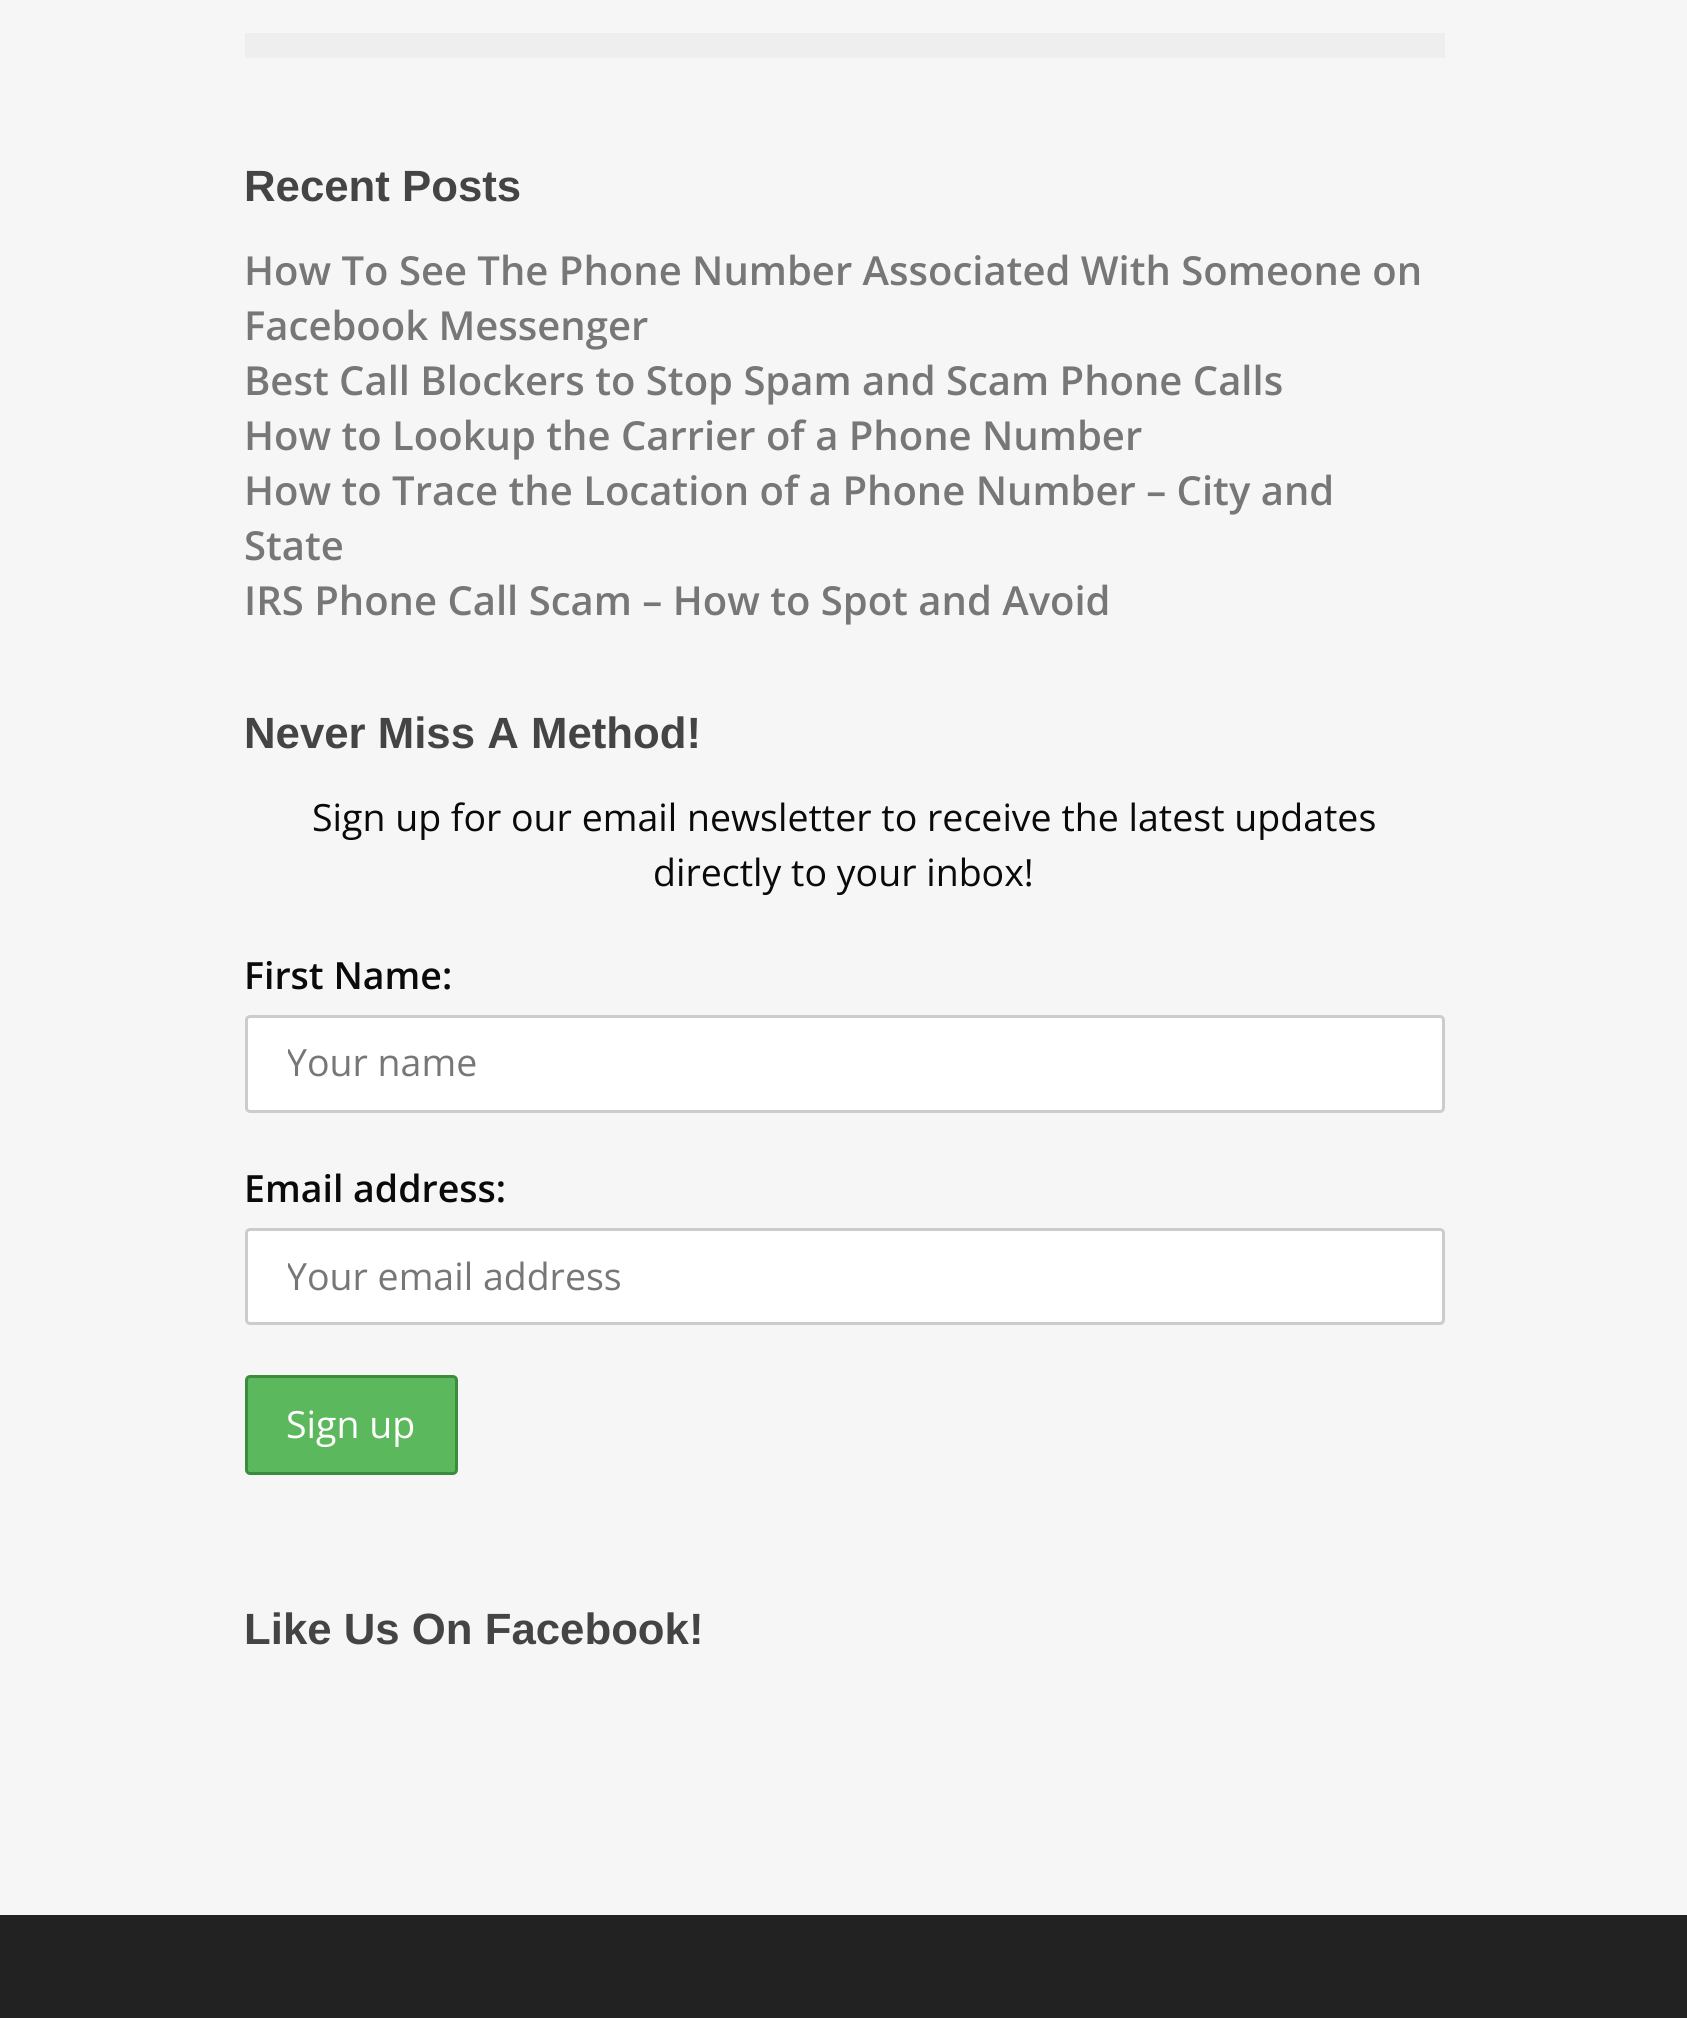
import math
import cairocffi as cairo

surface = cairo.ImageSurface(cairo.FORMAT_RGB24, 1687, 2018)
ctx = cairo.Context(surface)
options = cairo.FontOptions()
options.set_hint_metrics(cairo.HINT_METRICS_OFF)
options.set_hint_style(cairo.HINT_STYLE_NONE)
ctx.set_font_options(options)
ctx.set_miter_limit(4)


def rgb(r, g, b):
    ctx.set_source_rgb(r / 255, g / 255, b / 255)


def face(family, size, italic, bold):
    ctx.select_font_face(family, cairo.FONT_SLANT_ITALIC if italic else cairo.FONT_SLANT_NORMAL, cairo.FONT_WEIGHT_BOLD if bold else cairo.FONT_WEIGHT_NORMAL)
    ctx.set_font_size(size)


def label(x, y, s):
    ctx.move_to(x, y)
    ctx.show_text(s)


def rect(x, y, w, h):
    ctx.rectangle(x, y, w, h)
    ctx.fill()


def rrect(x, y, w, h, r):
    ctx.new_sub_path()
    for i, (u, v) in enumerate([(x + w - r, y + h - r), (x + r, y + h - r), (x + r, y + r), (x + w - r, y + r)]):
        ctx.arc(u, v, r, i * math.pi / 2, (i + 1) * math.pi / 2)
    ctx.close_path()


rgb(246, 246, 246)
ctx.paint()
rgb(238, 238, 238)
rect(245, 33, 1200, 25)
face('Liberation Sans', 43.75, 0, 1)
rgb(68, 68, 68)
label(244, 201, 'Recent Posts')
face('Open Sans SemiBold', 40, 0, 0)
rgb(119, 119, 119)
label(244, 285, 'How To See The Phone Number Associated With Someone on')
label(244, 340, 'Facebook Messenger')
label(244, 395, 'Best Call Blockers to Stop Spam and Scam Phone Calls')
label(244, 450, 'How to Lookup the Carrier of a Phone Number')
label(244, 505, 'How to Trace the Location of a Phone Number – City and')
label(244, 560, 'State')
label(244, 615, 'IRS Phone Call Scam – How to Spot and Avoid')
face('Liberation Sans', 43.75, 0, 1)
rgb(68, 68, 68)
label(244, 748, 'Never Miss A Method!')
face('Open Sans', 37.5, 0, 0)
rgb(10, 10, 10)
label(312, 831, 'Sign up for our email newsletter to receive the latest updates')
label(653, 886, 'directly to your inbox!')
face('Open Sans SemiBold', 37.5, 0, 0)
label(244, 989, 'First Name:')
rgb(255, 255, 255)
rrect(246.5, 1016.5, 1197, 95, 3.5)
ctx.fill_preserve()
rgb(204, 204, 204)
ctx.set_line_width(3)
ctx.stroke()
ctx.save()
ctx.rectangle(288, 1038, 1115, 50)
ctx.clip()
face('Open Sans', 37.5, 0, 0)
rgb(119, 119, 119)
label(286, 1076, 'Your name')
ctx.restore()
rgb(10, 10, 10)
label(244, 1202, 'Email address:')
rgb(255, 255, 255)
rrect(246.5, 1229.5, 1197, 94, 3.5)
ctx.fill_preserve()
rgb(204, 204, 204)
ctx.stroke()
ctx.save()
ctx.rectangle(288, 1250, 1115, 50)
ctx.clip()
face('Open Sans', 37.5, 0, 0)
rgb(119, 119, 119)
label(286, 1290, 'Your email address')
ctx.restore()
rgb(92, 184, 92)
rrect(246.5, 1376.5, 210, 97, 3.5)
ctx.fill_preserve()
rgb(61, 139, 61)
ctx.stroke()
face('Open Sans', 37.5, 0, 0)
rgb(255, 255, 255)
label(286, 1438, 'Sign up')
face('Liberation Sans', 43.75, 0, 1)
rgb(68, 68, 68)
label(244, 1644, 'Like Us On Facebook!')
rgb(34, 34, 34)
rect(0, 1915, 1687, 103)
surface.write_to_png('render.png')
